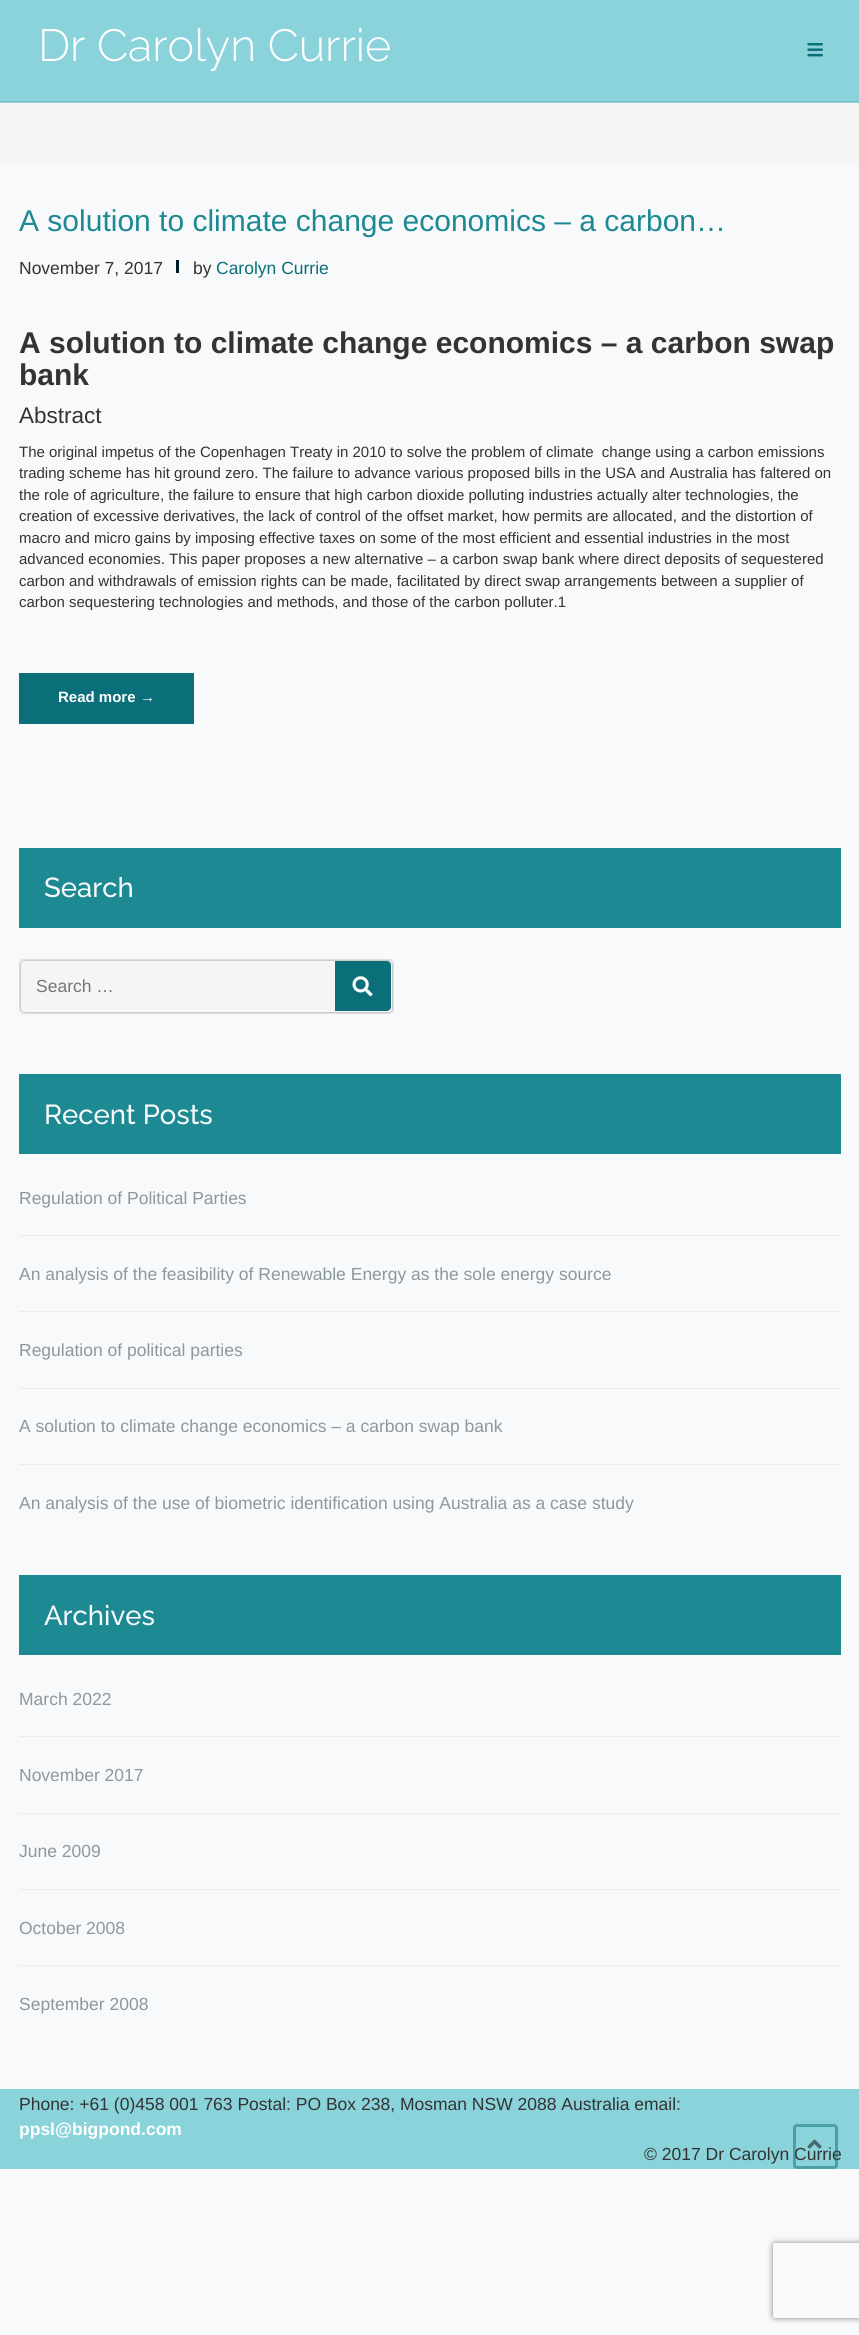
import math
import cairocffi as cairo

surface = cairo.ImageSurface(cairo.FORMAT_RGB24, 859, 2335)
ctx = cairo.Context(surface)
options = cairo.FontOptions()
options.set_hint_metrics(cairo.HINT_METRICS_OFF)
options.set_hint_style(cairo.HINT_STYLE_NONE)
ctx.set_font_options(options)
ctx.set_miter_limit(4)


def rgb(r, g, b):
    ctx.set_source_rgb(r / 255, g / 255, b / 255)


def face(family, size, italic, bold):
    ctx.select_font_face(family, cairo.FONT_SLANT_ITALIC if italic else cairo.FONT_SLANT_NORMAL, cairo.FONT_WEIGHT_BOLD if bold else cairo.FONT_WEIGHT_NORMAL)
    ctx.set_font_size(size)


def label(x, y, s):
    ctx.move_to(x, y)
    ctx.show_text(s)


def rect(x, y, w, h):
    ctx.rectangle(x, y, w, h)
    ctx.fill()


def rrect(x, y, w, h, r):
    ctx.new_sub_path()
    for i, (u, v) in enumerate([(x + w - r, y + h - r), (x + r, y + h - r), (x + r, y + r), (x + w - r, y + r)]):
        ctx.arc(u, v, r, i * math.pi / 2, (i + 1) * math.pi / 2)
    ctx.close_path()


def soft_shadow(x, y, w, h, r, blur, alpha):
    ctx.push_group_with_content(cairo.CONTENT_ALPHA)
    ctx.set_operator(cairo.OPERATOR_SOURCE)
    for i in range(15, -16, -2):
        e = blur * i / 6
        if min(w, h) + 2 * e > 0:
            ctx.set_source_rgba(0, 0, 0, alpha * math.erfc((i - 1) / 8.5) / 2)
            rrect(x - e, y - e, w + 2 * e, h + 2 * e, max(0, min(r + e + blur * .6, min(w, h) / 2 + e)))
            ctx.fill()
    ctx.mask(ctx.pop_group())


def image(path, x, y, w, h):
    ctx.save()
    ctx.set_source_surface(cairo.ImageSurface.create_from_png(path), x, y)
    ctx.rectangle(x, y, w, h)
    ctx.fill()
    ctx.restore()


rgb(247, 249, 251)
ctx.paint()
rgb(138, 211, 218)
rect(0, 0, 859, 103)
rgb(124, 190, 196)
rect(0, 101, 859, 1)
face('Raleway Light', 45, 0, 0)
rgb(255, 255, 255)
label(38, 61, 'Dr Carolyn Currie')
image('image0.png', 807, 43, 16, 14)
rgb(245, 245, 245)
rect(0, 103, 859, 62)
face('Liberation Sans', 30, 0, 0)
rgb(28, 137, 147)
label(19, 231, 'A solution to climate change economics – a carbon…')
face('Liberation Sans', 17.5, 0, 0)
rgb(51, 51, 51)
label(19, 274, 'November 7, 2017')
rgb(0, 28, 40)
rect(176, 260, 3, 13)
rgb(51, 51, 51)
label(193, 274, 'by')
rgb(10, 111, 120)
label(216, 274, 'Carolyn Currie')
face('Liberation Sans', 30, 0, 1)
rgb(51, 51, 51)
label(19, 353, 'A solution to climate change economics – a carbon swap')
label(19, 385, 'bank')
face('Liberation Sans', 22.5, 0, 0)
label(19, 423, 'Abstract')
face('Liberation Sans', 15, 0, 0)
label(19, 457, 'The original impetus of the Copenhagen Treaty in 2010 to solve the problem of climate  change using a carbon emissions')
label(19, 478, 'trading scheme has hit ground zero. The failure to advance various proposed bills in the USA and Australia has faltered on')
label(19, 500, 'the role of agriculture, the failure to ensure that high carbon dioxide polluting industries actually alter technologies, the')
label(19, 521, 'creation of excessive derivatives, the lack of control of the offset market, how permits are allocated, and the distortion of')
label(19, 543, 'macro and micro gains by imposing effective taxes on some of the most efficient and essential industries in the most')
label(19, 564, 'advanced economies. This paper proposes a new alternative – a carbon swap bank where direct deposits of sequestered')
label(19, 586, 'carbon and withdrawals of emission rights can be made, facilitated by direct swap arrangements between a supplier of')
label(19, 607, 'carbon sequestering technologies and methods, and those of the carbon polluter.1')
rgb(10, 111, 120)
rect(19, 673, 175, 51)
face('Liberation Sans', 15, 0, 1)
rgb(255, 255, 255)
label(58, 702, 'Read more')
face('Liberation Sans', 15, 0, 0)
label(140, 702, '→')
rgb(28, 137, 147)
rect(19, 848, 822, 80)
face('Raleway Medium', 27.5, 0, 0)
rgb(247, 249, 251)
label(44, 897, 'Search')
rrect(19.5, 959.5, 374, 54, 4.5)
rgb(221, 221, 221)
ctx.set_line_width(1)
ctx.stroke()
rrect(20.5, 960.5, 372, 52, 4.5)
rgb(204, 204, 204)
ctx.stroke()
rgb(245, 245, 245)
ctx.new_path()
ctx.move_to(25, 961)
ctx.line_to(335, 961)
ctx.line_to(335, 1011)
ctx.line_to(25, 1011)
ctx.curve_to(23, 1011, 21, 1009, 21, 1007)
ctx.line_to(21, 965)
ctx.curve_to(21, 963, 23, 961, 25, 961)
ctx.close_path()
ctx.fill()
face('Liberation Sans', 17.5, 0, 0)
rgb(117, 117, 117)
label(36, 992, 'Search …')
rgb(10, 111, 120)
ctx.new_path()
ctx.move_to(335, 961)
ctx.line_to(335, 1011)
ctx.line_to(387, 1011)
ctx.curve_to(389, 1011, 391, 1009, 391, 1007)
ctx.line_to(391, 965)
ctx.curve_to(391, 963, 389, 961, 387, 961)
ctx.close_path()
ctx.fill()
image('image1.png', 352, 976, 21, 21)
rgb(28, 137, 147)
rect(19, 1074, 822, 80)
face('Raleway Medium', 27.5, 0, 0)
rgb(247, 249, 251)
label(44, 1124, 'Recent Posts')
rgb(235, 235, 235)
rect(19, 1235, 822, 1)
face('Liberation Sans', 17.5, 0, 0)
rgb(140, 151, 158)
label(19, 1204, 'Regulation of Political Parties')
rgb(235, 235, 235)
rect(19, 1311, 822, 1)
rgb(140, 151, 158)
label(19, 1280, 'An analysis of the feasibility of Renewable Energy as the sole energy source')
rgb(235, 235, 235)
rect(19, 1388, 822, 1)
rgb(140, 151, 158)
label(19, 1356, 'Regulation of political parties')
rgb(235, 235, 235)
rect(19, 1464, 822, 1)
rgb(140, 151, 158)
label(19, 1432, 'A solution to climate change economics – a carbon swap bank')
label(19, 1509, 'An analysis of the use of biometric identification using Australia as a case study')
rgb(28, 137, 147)
rect(19, 1575, 822, 80)
face('Raleway Medium', 27.5, 0, 0)
rgb(247, 249, 251)
label(44, 1625, 'Archives')
rgb(235, 235, 235)
rect(19, 1736, 822, 1)
face('Liberation Sans', 17.5, 0, 0)
rgb(140, 151, 158)
label(19, 1705, 'March 2022')
rgb(235, 235, 235)
rect(19, 1813, 822, 1)
rgb(140, 151, 158)
label(19, 1781, 'November 2017')
rgb(235, 235, 235)
rect(19, 1889, 822, 1)
rgb(140, 151, 158)
label(19, 1857, 'June 2009')
rgb(235, 235, 235)
rect(19, 1965, 822, 1)
rgb(140, 151, 158)
label(19, 1934, 'October 2008')
label(19, 2010, 'September 2008')
rgb(138, 211, 218)
rect(0, 2089, 859, 80)
rgb(51, 51, 51)
label(19, 2110, 'Phone: +61 (0)458 001 763 Postal: PO Box 238, Mosman NSW 2088 Australia email:')
face('Liberation Sans', 17.5, 0, 1)
rgb(255, 255, 255)
label(19, 2135, 'ppsl@bigpond.com')
face('Liberation Sans', 17.5, 0, 0)
rgb(51, 51, 51)
label(644, 2160, '© 2017 Dr Carolyn Currie')
rrect(794.5, 2125.5, 42, 42, 2.5)
ctx.set_source_rgba(0.039, 0.435, 0.471, 0.5)
ctx.set_line_width(3)
ctx.stroke()
image('image2.png', 807, 2139, 15, 10)
ctx.save()
ctx.set_fill_rule(cairo.FILL_RULE_EVEN_ODD)
ctx.new_path()
ctx.move_to(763, 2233)
ctx.line_to(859, 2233)
ctx.line_to(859, 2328)
ctx.line_to(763, 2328)
ctx.close_path()
ctx.move_to(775.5, 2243)
ctx.line_to(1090.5, 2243)
ctx.curve_to(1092, 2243, 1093, 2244, 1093, 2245.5)
ctx.line_to(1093, 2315.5)
ctx.curve_to(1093, 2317, 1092, 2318, 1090.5, 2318)
ctx.line_to(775.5, 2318)
ctx.curve_to(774, 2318, 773, 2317, 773, 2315.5)
ctx.line_to(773, 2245.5)
ctx.curve_to(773, 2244, 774, 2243, 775.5, 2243)
ctx.close_path()
ctx.clip()
rgb(128, 128, 128)
soft_shadow(773, 2243, 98, 75, 2.5, 3, 1)
ctx.restore()
surface.write_to_png('render.png')
